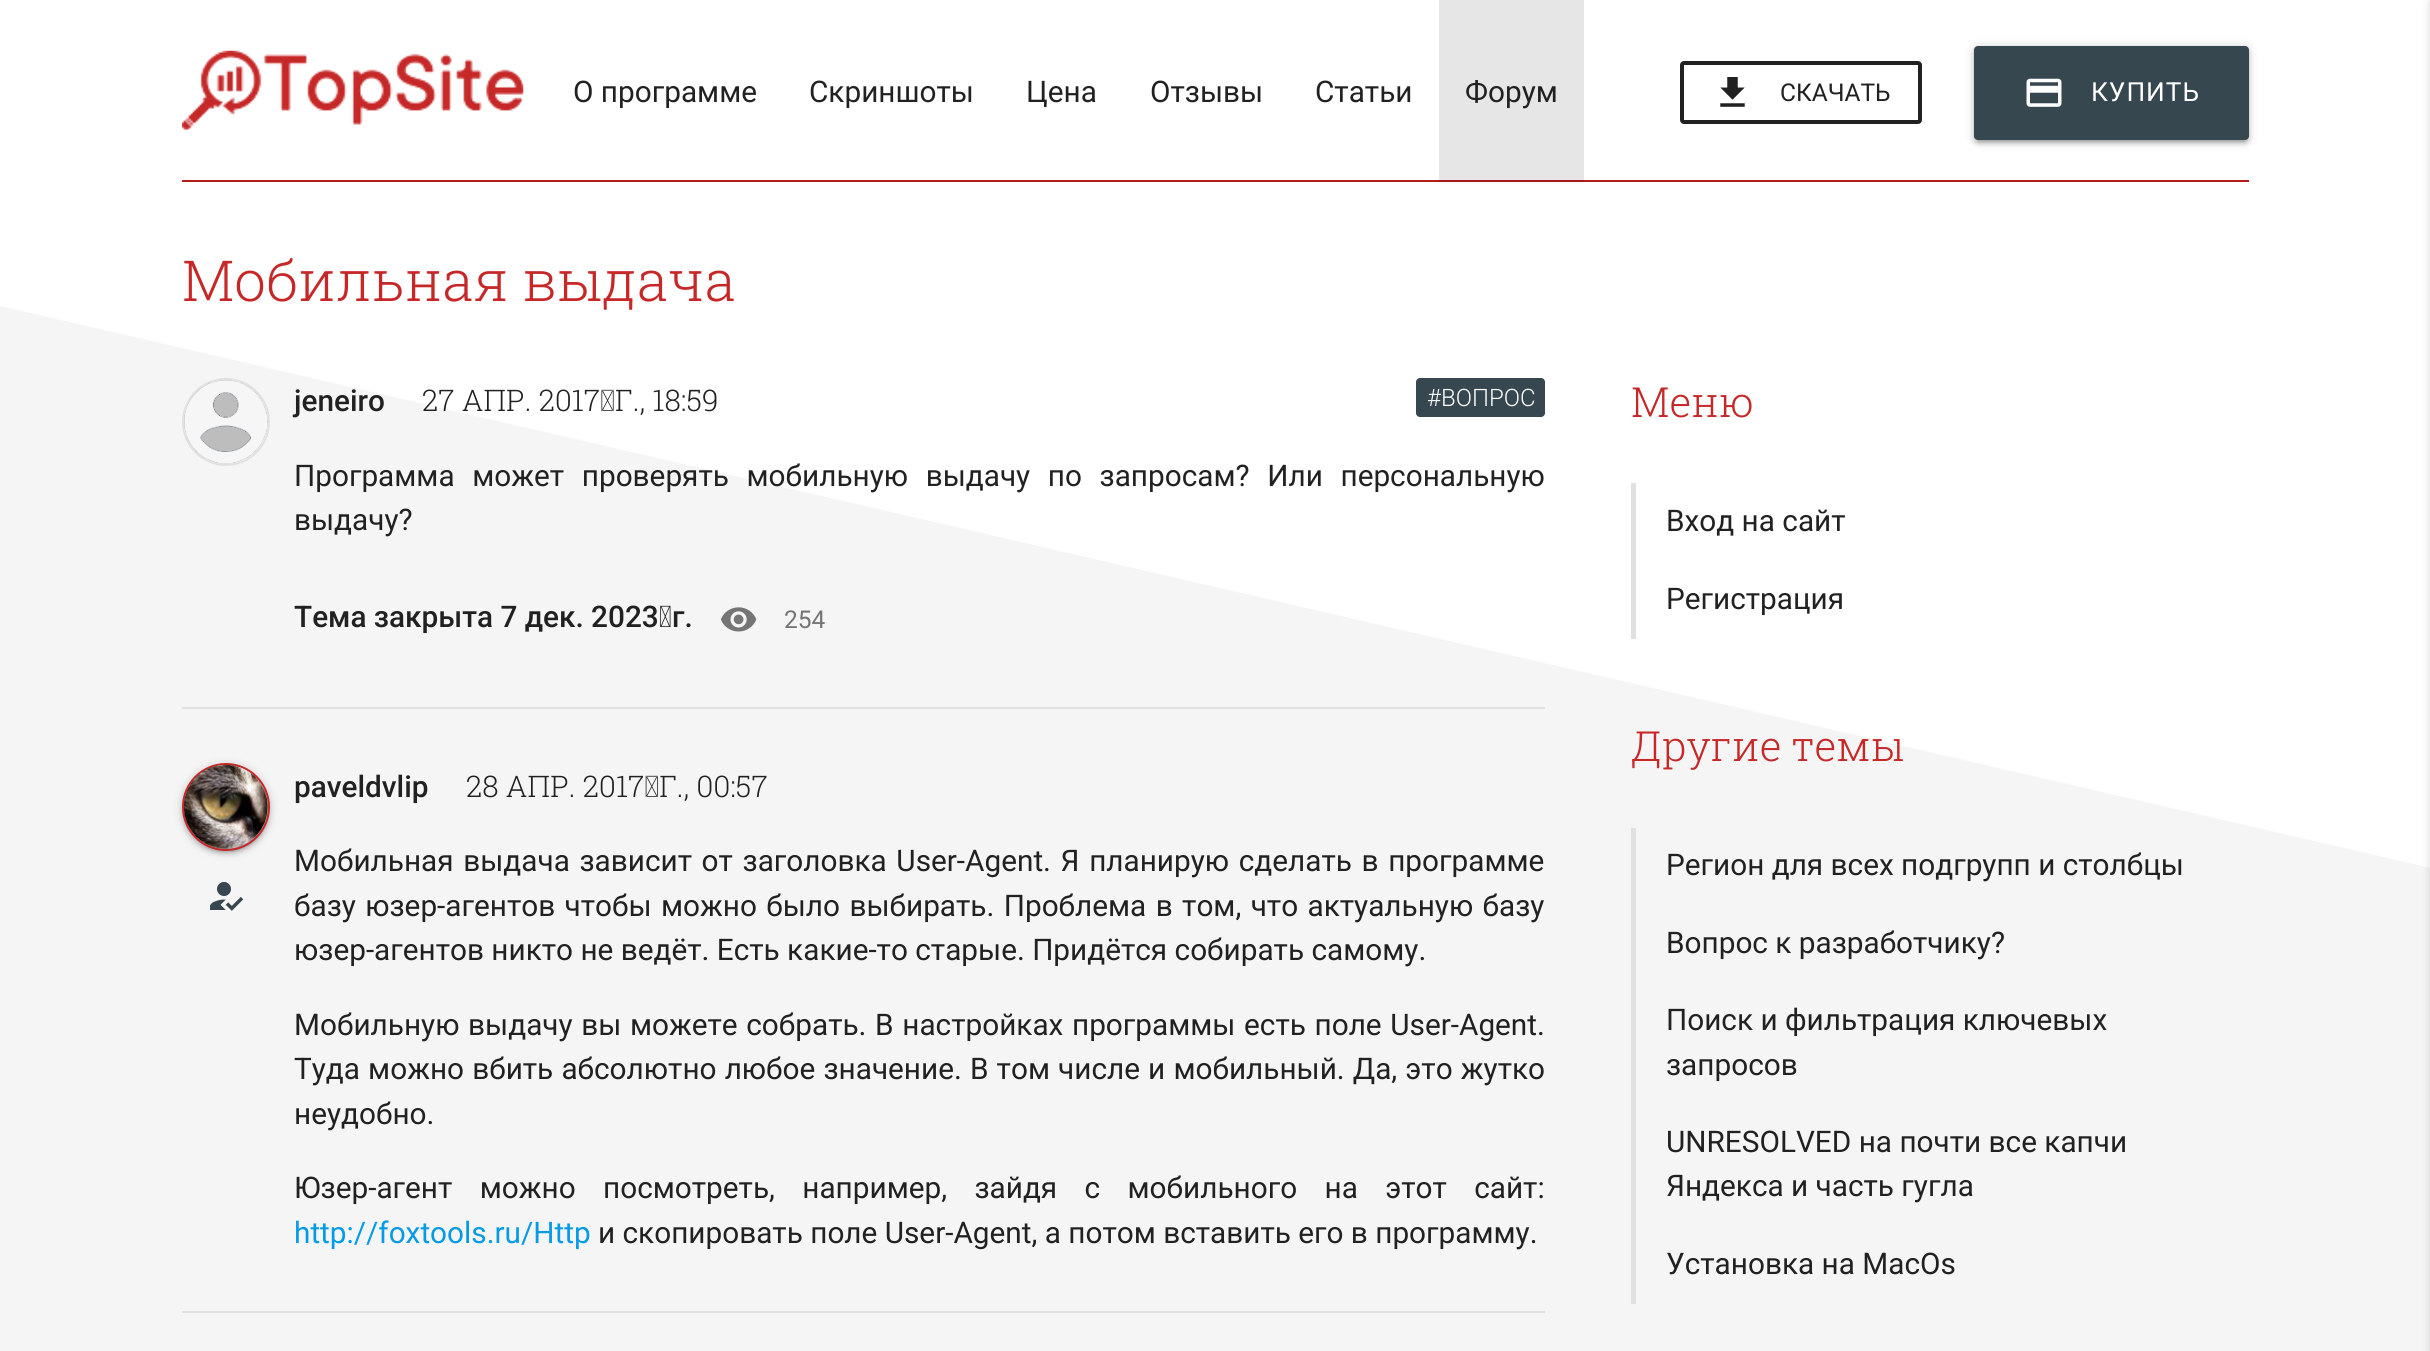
import math
import cairocffi as cairo

surface = cairo.ImageSurface(cairo.FORMAT_RGB24, 2430, 1351)
ctx = cairo.Context(surface)
options = cairo.FontOptions()
options.set_hint_metrics(cairo.HINT_METRICS_OFF)
options.set_hint_style(cairo.HINT_STYLE_NONE)
ctx.set_font_options(options)
ctx.set_miter_limit(4)


def rgb(r, g, b):
    ctx.set_source_rgb(r / 255, g / 255, b / 255)


def face(family, size, italic, bold):
    ctx.select_font_face(family, cairo.FONT_SLANT_ITALIC if italic else cairo.FONT_SLANT_NORMAL, cairo.FONT_WEIGHT_BOLD if bold else cairo.FONT_WEIGHT_NORMAL)
    ctx.set_font_size(size)


def label(x, y, s):
    ctx.move_to(x, y)
    ctx.show_text(s)


def tracked(x, y, s, letter, word):
    ctx.move_to(x, y)
    for ch in s:
        ctx.show_text(ch)
        ctx.rel_move_to(letter + word * (ch == ' '), 0)


def rect(x, y, w, h):
    ctx.rectangle(x, y, w, h)
    ctx.fill()


def rrect(x, y, w, h, r):
    ctx.new_sub_path()
    for i, (u, v) in enumerate([(x + w - r, y + h - r), (x + r, y + h - r), (x + r, y + r), (x + w - r, y + r)]):
        ctx.arc(u, v, r, i * math.pi / 2, (i + 1) * math.pi / 2)
    ctx.close_path()


def soft_shadow(x, y, w, h, r, blur, alpha):
    ctx.push_group_with_content(cairo.CONTENT_ALPHA)
    ctx.set_operator(cairo.OPERATOR_SOURCE)
    for i in range(15, -16, -2):
        e = blur * i / 6
        if min(w, h) + 2 * e > 0:
            ctx.set_source_rgba(0, 0, 0, alpha * math.erfc((i - 1) / 8.5) / 2)
            rrect(x - e, y - e, w + 2 * e, h + 2 * e, max(0, min(r + e + blur * .6, min(w, h) / 2 + e)))
            ctx.fill()
    ctx.mask(ctx.pop_group())


def image(path, x, y, w, h):
    ctx.save()
    ctx.set_source_surface(cairo.ImageSurface.create_from_png(path), x, y)
    ctx.rectangle(x, y, w, h)
    ctx.fill()
    ctx.restore()


rgb(245, 245, 245)
ctx.paint()
rgb(255, 255, 255)
ctx.new_path()
ctx.move_to(0, -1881)
ctx.line_to(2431, -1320)
ctx.line_to(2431, 868)
ctx.line_to(0, 306)
ctx.close_path()
ctx.fill()
rgb(183, 28, 28)
rect(182, 180, 2067, 2)
image('image0.png', 182, 50, 342, 80)
face('Roboto', 29.75, 0, 0)
rgb(33, 33, 33)
label(573, 102, 'О программе')
label(809, 102, 'Скриншоты')
label(1026, 102, 'Цена')
label(1150, 102, 'Отзывы')
label(1315, 102, 'Статьи')
ctx.set_source_rgba(0, 0, 0, 0.1)
rect(1439, 0, 145, 182)
rgb(33, 33, 33)
label(1465, 102, 'Форум')
rrect(1682, 63, 238, 59, 2)
ctx.set_line_width(4)
ctx.stroke()
image('image1.png', 1720, 77, 25, 30)
face('Roboto', 24.5, 0, 0)
label(1780, 101, 'СКАЧАТЬ')
rgb(0, 0, 0)
soft_shadow(1974, 47, 275, 95, 4, 4.5, 0.2)
soft_shadow(1978, 54, 267, 88, 0, 1, 0.12)
soft_shadow(1974, 49, 275, 95, 4, 2, 0.14)
rgb(55, 71, 79)
rrect(1974, 46, 275, 94, 4)
ctx.fill()
image('image2.png', 2026, 78, 36, 29)
face('Roboto', 26.25, 0, 0)
rgb(255, 255, 255)
tracked(2091, 101, 'КУПИТЬ', 1, 0)
face('Roboto Slab Light', 56.5, 0, 0)
rgb(198, 40, 40)
label(182, 301, 'Мобильная выдача')
ctx.new_path()
ctx.arc(226, 422, 43, 0, 2 * math.pi)
rgb(225, 225, 225)
ctx.set_line_width(2)
ctx.stroke()
image('image3.png', 184, 380, 84, 84)
face('Roboto Medium', 29.75, 0, 0)
rgb(33, 33, 33)
label(294, 411, 'jeneiro')
face('Roboto Slab Light', 29.75, 0, 0)
label(422, 411, '27 АПР. 2017 Г., 18:59')
rgb(55, 71, 79)
rrect(1416, 378, 129, 39, 4)
ctx.fill()
face('Roboto Light', 24, 0, 0)
rgb(255, 255, 255)
label(1427, 406, '#ВОПРОС')
face('Roboto', 29.75, 0, 0)
rgb(33, 33, 33)
tracked(294, 486, 'Программа может проверять мобильную выдачу по запросам? Или персональную', 0, 10.25)
label(294, 530, 'выдачу?')
face('Roboto Medium', 29.75, 0, 0)
label(294, 627, 'Тема закрыта 7 дек. 2023 г.')
image('image4.png', 720, 607, 37, 25)
face('Roboto', 24.5, 0, 0)
rgb(117, 117, 117)
label(784, 628, '254')
rgb(224, 224, 224)
rect(182, 707, 1363, 2)
rgb(0, 0, 0)
soft_shadow(182, 765, 88, 87, 43.5, 4.5, 0.2)
soft_shadow(182, 767, 88, 87, 43.5, 2, 0.14)
soft_shadow(186, 772, 80, 80, 40, 1, 0.12)
ctx.arc(226, 807, 43, 0, 2 * math.pi)
rgb(198, 40, 40)
ctx.stroke()
image('image5.png', 183, 764, 85, 85)
image('image6.png', 210, 882, 34, 29)
face('Roboto Medium', 29.75, 0, 0)
rgb(33, 33, 33)
label(294, 797, 'paveldvlip')
face('Roboto Slab Light', 29.75, 0, 0)
label(466, 797, '28 АПР. 2017 Г., 00:57')
face('Roboto', 29.75, 0, 0)
tracked(294, 871, 'Мобильная выдача зависит от заголовка User-Agent. Я планирую сделать в программе', 0, 2.25)
tracked(294, 916, 'базу юзер-агентов чтобы можно было выбирать. Проблема в том, что актуальную базу', 0, 2)
label(294, 960, 'юзер-агентов никто не ведёт. Есть какие-то старые. Придётся собирать самому.')
tracked(294, 1035, 'Мобильную выдачу вы можете собрать. В настройках программы есть поле User-Agent.', 0, 1.25)
tracked(294, 1079, 'Туда можно вбить абсолютно любое значение. В том числе и мобильный. Да, это жутко', 0, 0.75)
label(294, 1124, 'неудобно.')
tracked(294, 1198, 'Юзер-агент можно посмотреть, например, зайдя с мобильного на этот сайт:', 0, 20)
rgb(3, 155, 229)
label(294, 1243, 'http://foxtools.ru/Http')
rgb(33, 33, 33)
label(598, 1243, 'и скопировать поле User-Agent, а потом вставить его в программу.')
rgb(224, 224, 224)
rect(182, 1311, 1363, 2)
face('Roboto Slab Light', 41.5, 0, 0)
rgb(198, 40, 40)
label(1631, 417, 'Меню')
rgb(224, 224, 224)
rect(1631, 483, 5, 156)
face('Roboto', 29.75, 0, 0)
rgb(33, 33, 33)
label(1666, 531, 'Вход на сайт')
label(1666, 609, 'Регистрация')
face('Roboto Slab Light', 41.5, 0, 0)
rgb(198, 40, 40)
label(1631, 761, 'Другие темы')
rgb(224, 224, 224)
rect(1631, 828, 5, 476)
face('Roboto', 29.75, 0, 0)
rgb(33, 33, 33)
label(1666, 875, 'Регион для всех подгрупп и столбцы')
label(1666, 953, 'Вопрос к разработчику?')
label(1666, 1030, 'Поиск и фильтрация ключевых')
label(1666, 1075, 'запросов')
label(1666, 1152, 'UNRESOLVED на почти все капчи')
label(1666, 1196, 'Яндекса и часть гугла')
label(1666, 1274, 'Установка на MacOs')
rgb(0, 0, 0)
soft_shadow(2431, 2, 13, 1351, 0, 4.5, 0.2)
surface.write_to_png('render.png')
